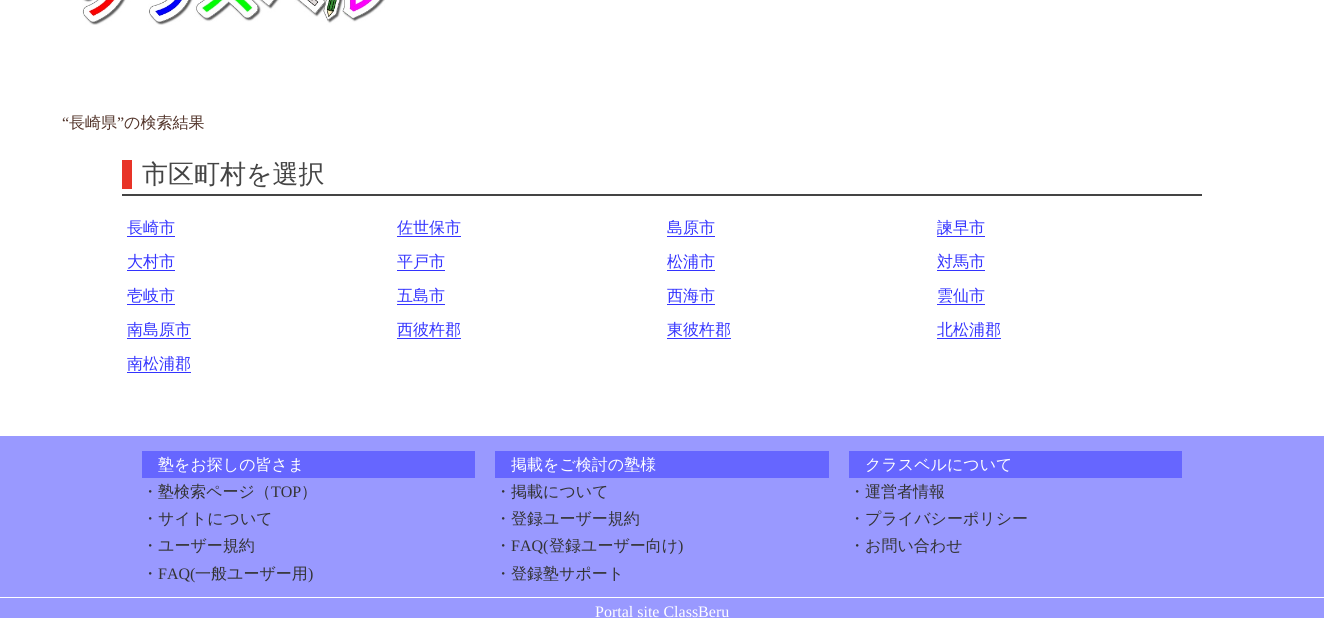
import math
import cairocffi as cairo

surface = cairo.ImageSurface(cairo.FORMAT_RGB24, 1324, 618)
ctx = cairo.Context(surface)
options = cairo.FontOptions()
options.set_hint_metrics(cairo.HINT_METRICS_OFF)
options.set_hint_style(cairo.HINT_STYLE_NONE)
ctx.set_font_options(options)
ctx.set_miter_limit(4)


def rgb(r, g, b):
    ctx.set_source_rgb(r / 255, g / 255, b / 255)


def face(family, size, italic, bold):
    ctx.select_font_face(family, cairo.FONT_SLANT_ITALIC if italic else cairo.FONT_SLANT_NORMAL, cairo.FONT_WEIGHT_BOLD if bold else cairo.FONT_WEIGHT_NORMAL)
    ctx.set_font_size(size)


def label(x, y, s):
    ctx.move_to(x, y)
    ctx.show_text(s)


def rect(x, y, w, h):
    ctx.rectangle(x, y, w, h)
    ctx.fill()


def image(path, x, y, w, h):
    ctx.save()
    ctx.set_source_surface(cairo.ImageSurface.create_from_png(path), x, y)
    ctx.rectangle(x, y, w, h)
    ctx.fill()
    ctx.restore()


rgb(255, 255, 255)
ctx.paint()
image('image0.png', 82, 0, 303, 25)
face('Liberation Serif', 16, 0, 0)
rgb(82, 52, 42)
label(62, 128, '“')
face('WenQuanYi Zen Hei Medium', 16, 0, 0)
label(69, 128, '長崎県')
face('Liberation Serif', 16, 0, 0)
label(117, 128, '”')
face('WenQuanYi Zen Hei Medium', 16, 0, 0)
label(124, 128, 'の検索結果')
rgb(68, 68, 68)
rect(122, 194, 1080, 2)
rgb(232, 52, 40)
rect(122, 160, 10, 29)
face('WenQuanYi Zen Hei Medium', 26, 0, 0)
rgb(68, 68, 68)
label(142, 183, '市区町村を選択')
face('WenQuanYi Zen Hei Medium', 16, 0, 0)
rgb(51, 51, 255)
label(127, 233, '長崎市')
rect(127, 236, 48, 1)
label(397, 233, '佐世保市')
rect(397, 236, 64, 1)
label(667, 233, '島原市')
rect(667, 236, 48, 1)
label(937, 233, '諫早市')
rect(937, 236, 48, 1)
label(127, 267, '大村市')
rect(127, 270, 48, 1)
label(397, 267, '平戸市')
rect(397, 270, 48, 1)
label(667, 267, '松浦市')
rect(667, 270, 48, 1)
label(937, 267, '対馬市')
rect(937, 270, 48, 1)
label(127, 301, '壱岐市')
rect(127, 304, 48, 1)
label(397, 301, '五島市')
rect(397, 304, 48, 1)
label(667, 301, '西海市')
rect(667, 304, 48, 1)
label(937, 301, '雲仙市')
rect(937, 304, 48, 1)
label(127, 335, '南島原市')
rect(127, 338, 64, 1)
label(397, 335, '西彼杵郡')
rect(397, 338, 64, 1)
label(667, 335, '東彼杵郡')
rect(667, 338, 64, 1)
label(937, 335, '北松浦郡')
rect(937, 338, 64, 1)
label(127, 369, '南松浦郡')
rect(127, 372, 64, 1)
rgb(153, 153, 255)
rect(0, 436, 1324, 182)
rgb(102, 102, 255)
rect(142, 451, 333, 27)
rgb(255, 255, 255)
label(158, 470, '塾をお探しの皆さま')
rgb(51, 51, 51)
label(142, 497, '・塾検索ページ（')
face('Liberation Serif', 16, 0, 0)
label(271, 497, 'TOP')
face('WenQuanYi Zen Hei Medium', 16, 0, 0)
label(301, 497, '）')
label(142, 524, '・サイトについて')
label(142, 551, '・ユーザー規約')
label(142, 579, '・')
face('Liberation Serif', 16, 0, 0)
label(158, 579, 'FAQ(')
face('WenQuanYi Zen Hei Medium', 16, 0, 0)
label(195, 579, '一般ユーザー用')
face('Liberation Serif', 16, 0, 0)
label(308, 579, ')')
rgb(102, 102, 255)
rect(495, 451, 334, 27)
face('WenQuanYi Zen Hei Medium', 16, 0, 0)
rgb(255, 255, 255)
label(511, 470, '掲載をご検討の塾様')
rgb(51, 51, 51)
label(495, 497, '・掲載について')
label(495, 524, '・登録ユーザー規約')
label(495, 551, '・')
face('Liberation Serif', 16, 0, 0)
label(511, 551, 'FAQ(')
face('WenQuanYi Zen Hei Medium', 16, 0, 0)
label(549, 551, '登録ユーザー向け')
face('Liberation Serif', 16, 0, 0)
label(678, 551, ')')
face('WenQuanYi Zen Hei Medium', 16, 0, 0)
label(495, 579, '・登録塾サポート')
rgb(102, 102, 255)
rect(849, 451, 333, 27)
rgb(255, 255, 255)
label(865, 470, 'クラスベルについて')
rgb(51, 51, 51)
label(849, 497, '・運営者情報')
label(849, 524, '・プライバシーポリシー')
label(849, 551, '・お問い合わせ')
rgb(255, 255, 255)
rect(0, 597, 1324, 1)
face('Liberation Serif', 16, 0, 0)
label(595, 617, 'Portal site ClassBeru')
surface.write_to_png('render.png')
